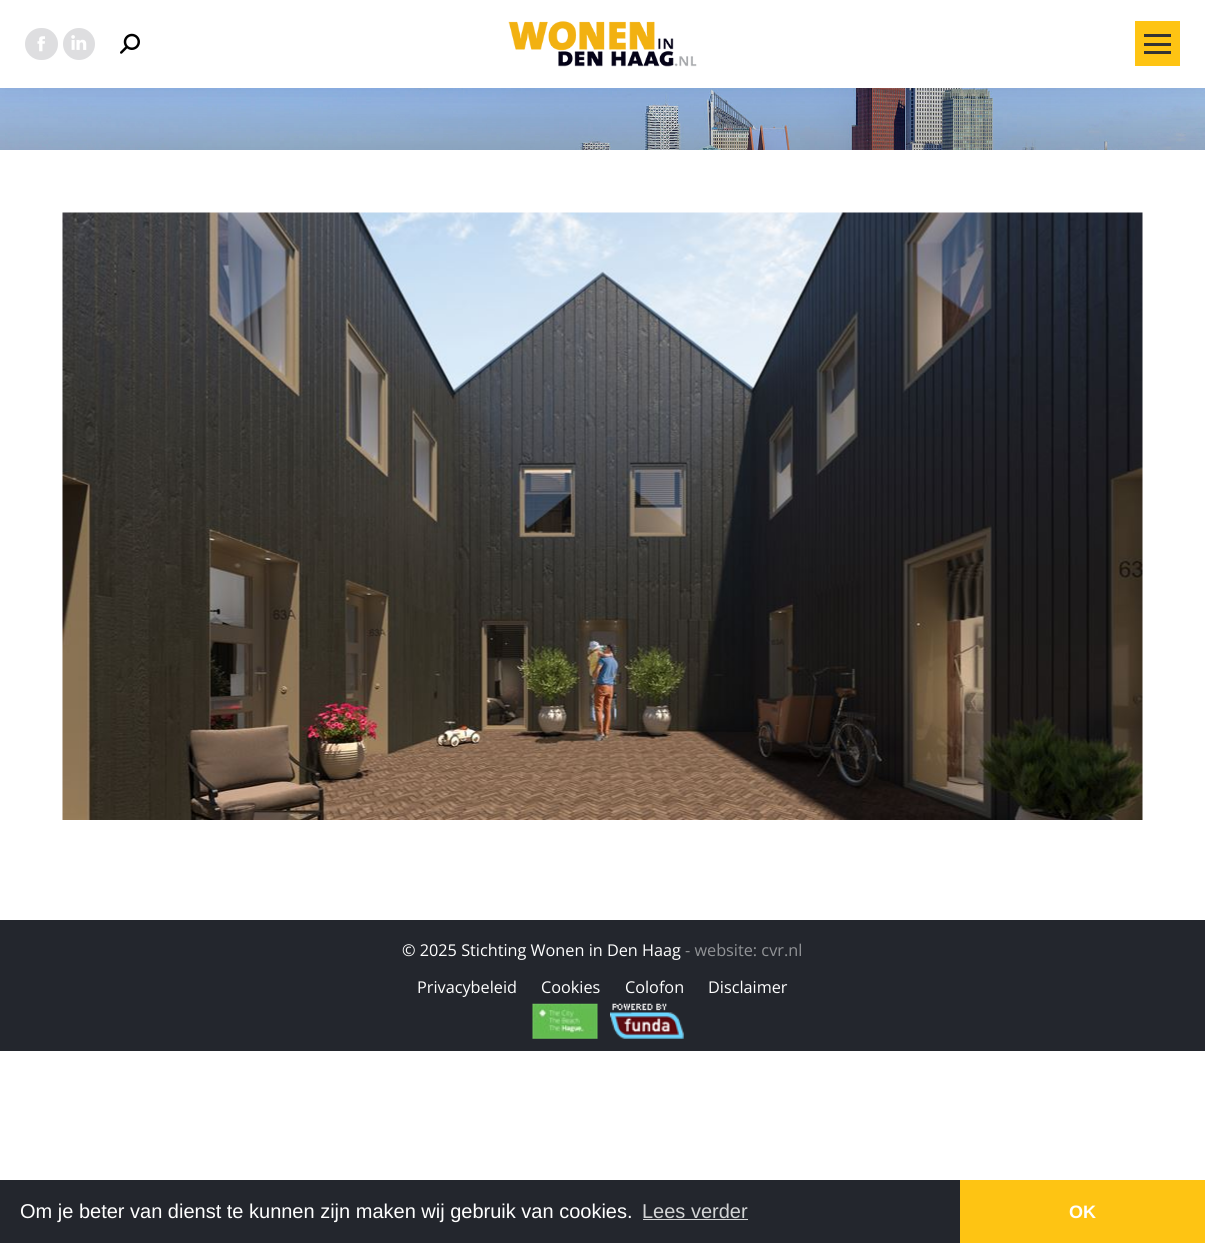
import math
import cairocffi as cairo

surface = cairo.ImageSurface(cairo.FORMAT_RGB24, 1205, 1243)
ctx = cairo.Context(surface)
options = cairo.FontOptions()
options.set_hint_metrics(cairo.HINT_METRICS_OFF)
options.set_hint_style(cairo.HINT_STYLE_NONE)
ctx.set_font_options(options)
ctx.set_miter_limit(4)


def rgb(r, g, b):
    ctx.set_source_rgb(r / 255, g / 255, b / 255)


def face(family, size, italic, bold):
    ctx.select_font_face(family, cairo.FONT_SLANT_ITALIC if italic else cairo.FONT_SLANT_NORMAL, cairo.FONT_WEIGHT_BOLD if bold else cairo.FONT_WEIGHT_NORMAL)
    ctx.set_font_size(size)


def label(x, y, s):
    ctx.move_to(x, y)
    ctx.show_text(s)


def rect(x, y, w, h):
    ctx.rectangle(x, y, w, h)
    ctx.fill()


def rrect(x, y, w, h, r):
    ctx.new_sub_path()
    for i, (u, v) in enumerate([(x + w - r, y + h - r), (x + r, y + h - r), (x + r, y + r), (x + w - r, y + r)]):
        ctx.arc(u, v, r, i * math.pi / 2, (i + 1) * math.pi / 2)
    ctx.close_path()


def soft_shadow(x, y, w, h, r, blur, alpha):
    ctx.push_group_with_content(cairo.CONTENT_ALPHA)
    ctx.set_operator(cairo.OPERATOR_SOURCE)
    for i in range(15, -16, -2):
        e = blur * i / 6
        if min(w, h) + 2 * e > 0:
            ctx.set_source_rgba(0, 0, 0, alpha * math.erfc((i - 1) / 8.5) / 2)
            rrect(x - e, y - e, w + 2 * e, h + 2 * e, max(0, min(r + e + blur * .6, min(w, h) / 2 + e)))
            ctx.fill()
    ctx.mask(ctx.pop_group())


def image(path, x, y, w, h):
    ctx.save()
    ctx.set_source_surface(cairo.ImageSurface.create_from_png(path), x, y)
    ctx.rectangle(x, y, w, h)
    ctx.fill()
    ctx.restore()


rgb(255, 255, 255)
ctx.paint()
image('image4.png', 0, 88, 1205, 62)
rgb(0, 0, 0)
soft_shadow(-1, -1, 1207, 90, 0, 9.5, 0.07)
rgb(255, 255, 255)
rect(0, 0, 1205, 88)
rgb(222, 222, 224)
rrect(25, 28, 33, 32, 16)
ctx.fill()
image('image0.png', 37, 36, 8, 16)
ctx.arc(79, 44, 16, 0, 2 * math.pi)
ctx.fill()
image('image1.png', 71, 35, 16, 15)
image('image2.png', 120, 33, 20, 21)
image('image3.png', 508, 21, 189, 46)
rgb(254, 196, 19)
rect(1135, 21, 45, 45)
rgb(51, 51, 51)
rect(1144, 34, 27, 3)
rect(1144, 43, 27, 3)
rect(1144, 51, 27, 3)
image('image5.png', 62, 212, 1081, 608)
rgb(35, 38, 45)
rect(0, 920, 1205, 131)
face('Open Sans', 16.25, 0, 0)
rgb(255, 255, 255)
label(402, 956, '© 2025 Stichting Wonen in Den Haag')
rgb(145, 147, 150)
label(685, 956, '- website: cvr.nl')
rgb(255, 255, 255)
label(417, 993, 'Privacybeleid')
label(541, 993, 'Cookies')
label(625, 993, 'Colofon')
label(708, 993, 'Disclaimer')
image('image6.png', 532, 1003, 66, 36)
image('image7.png', 610, 1003, 74, 36)
rgb(35, 38, 45)
rect(0, 1180, 960, 63)
face('Liberation Sans', 20, 0, 0)
rgb(255, 255, 255)
label(20, 1218, 'Om je beter van dienst te kunnen zijn maken wij gebruik van cookies.')
rgb(211, 212, 213)
label(642, 1218, 'Lees verder')
rect(643, 1219, 105, 1)
rgb(254, 196, 19)
rect(960, 1180, 245, 63)
face('Liberation Sans', 18, 0, 1)
rgb(255, 255, 255)
label(1069, 1218, 'OK')
surface.write_to_png('render.png')
